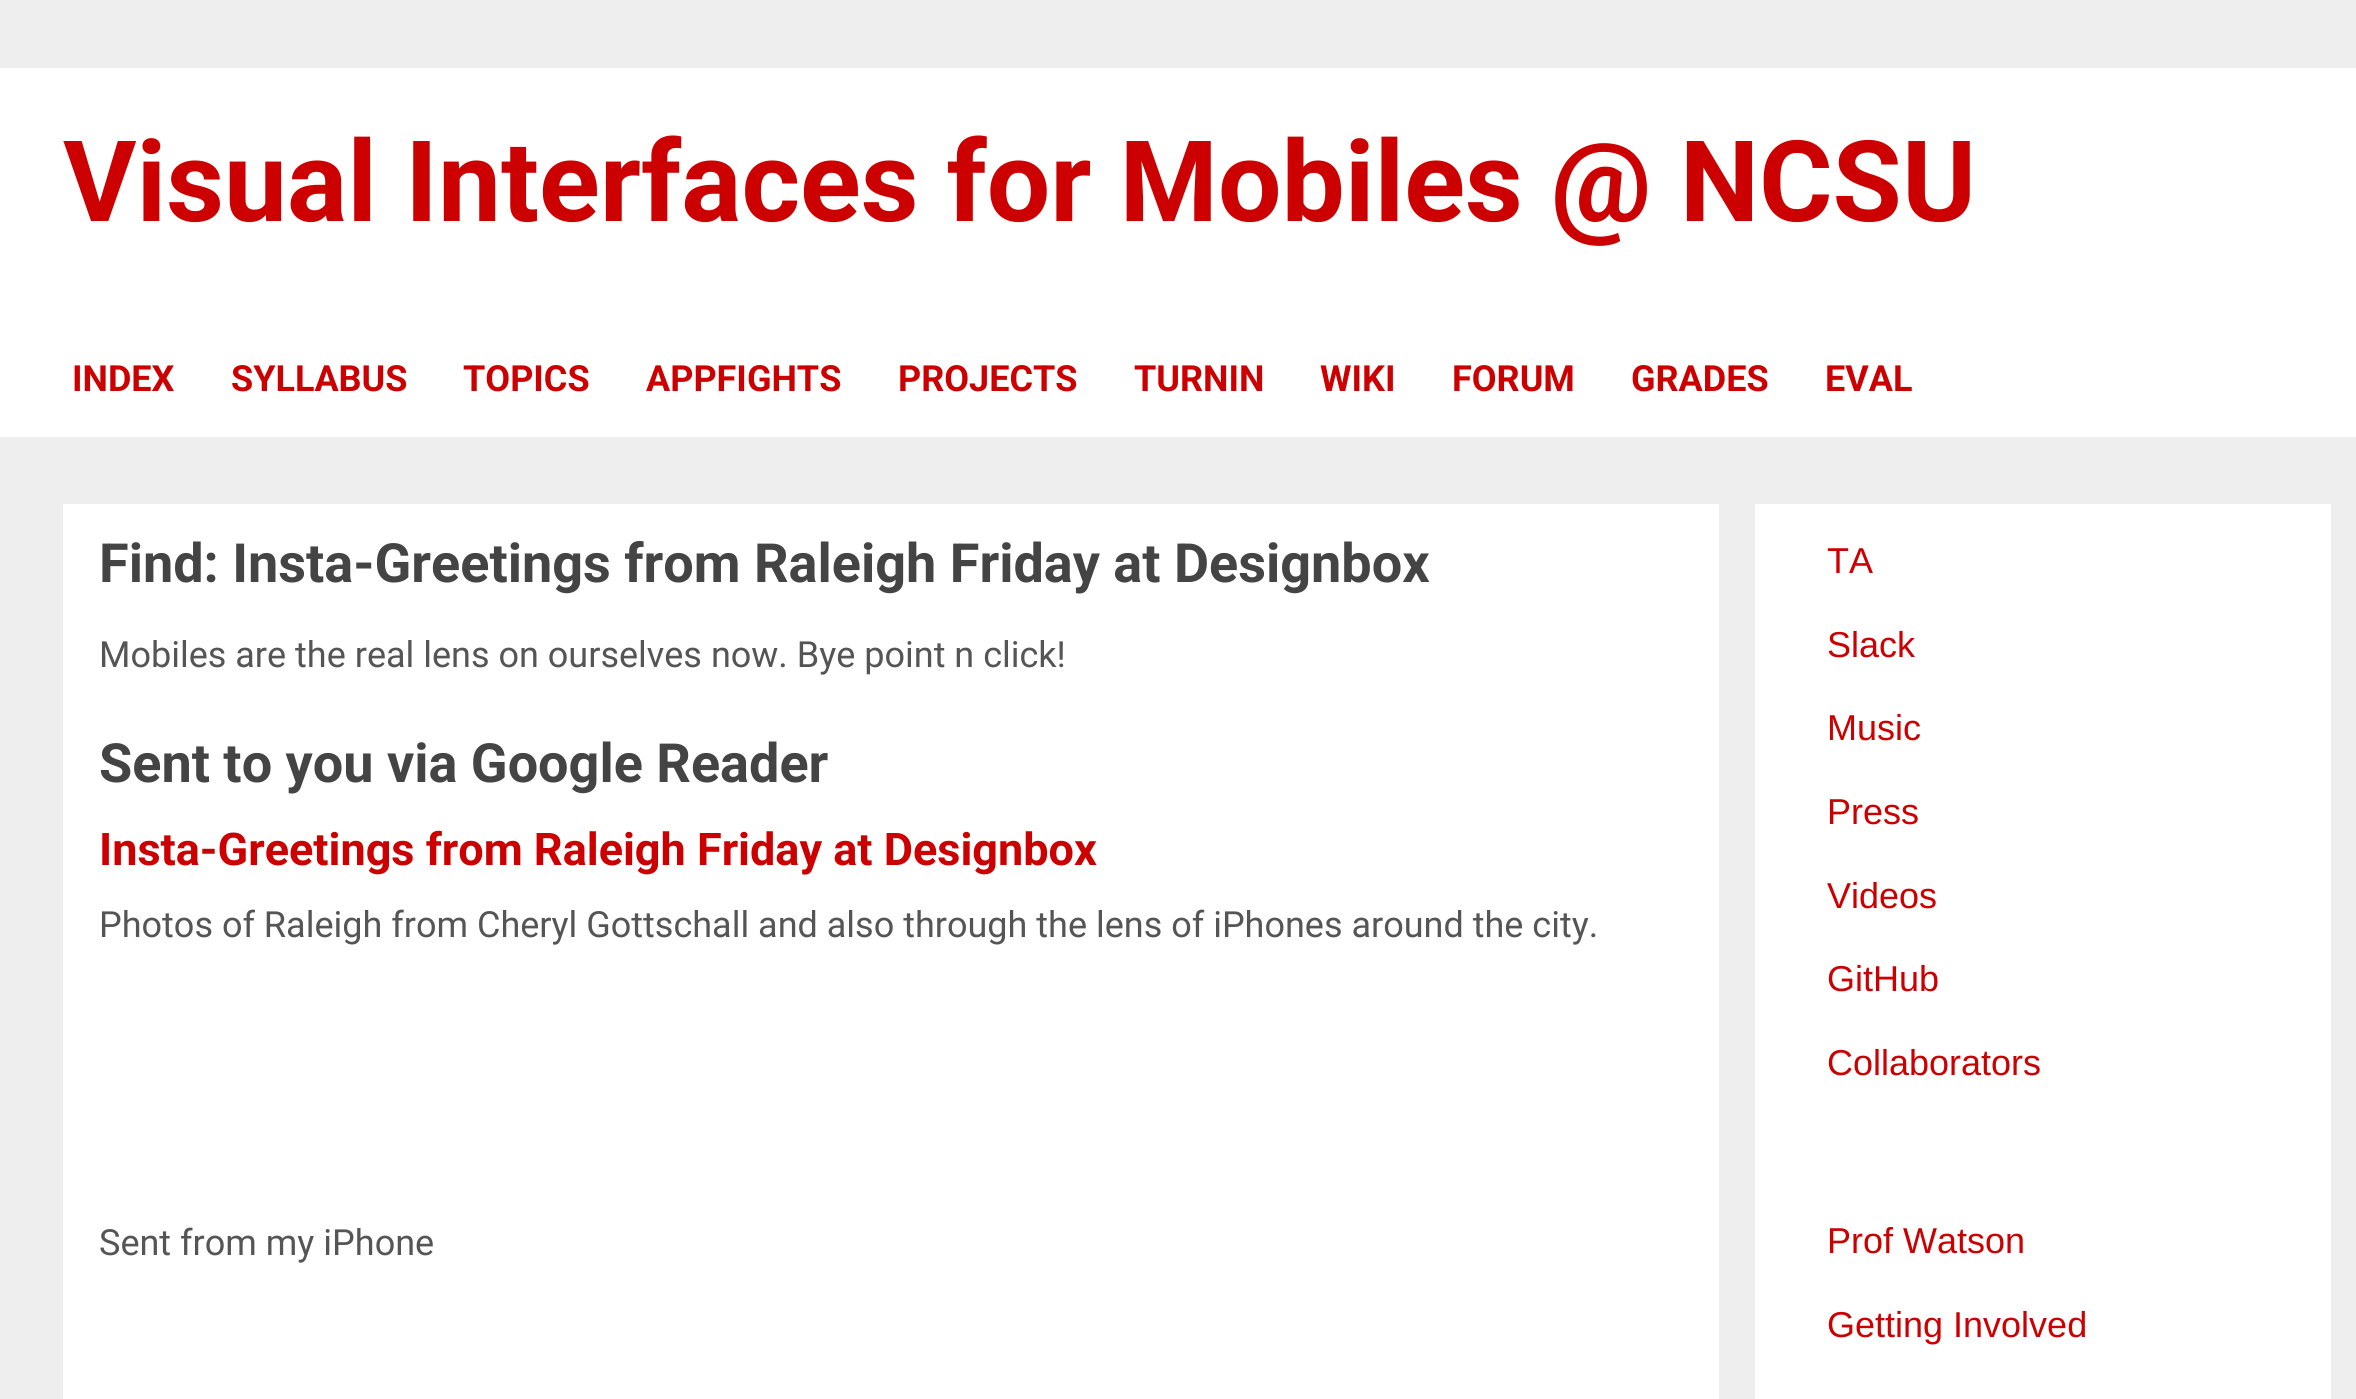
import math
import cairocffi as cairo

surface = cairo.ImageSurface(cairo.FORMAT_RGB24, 2356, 1399)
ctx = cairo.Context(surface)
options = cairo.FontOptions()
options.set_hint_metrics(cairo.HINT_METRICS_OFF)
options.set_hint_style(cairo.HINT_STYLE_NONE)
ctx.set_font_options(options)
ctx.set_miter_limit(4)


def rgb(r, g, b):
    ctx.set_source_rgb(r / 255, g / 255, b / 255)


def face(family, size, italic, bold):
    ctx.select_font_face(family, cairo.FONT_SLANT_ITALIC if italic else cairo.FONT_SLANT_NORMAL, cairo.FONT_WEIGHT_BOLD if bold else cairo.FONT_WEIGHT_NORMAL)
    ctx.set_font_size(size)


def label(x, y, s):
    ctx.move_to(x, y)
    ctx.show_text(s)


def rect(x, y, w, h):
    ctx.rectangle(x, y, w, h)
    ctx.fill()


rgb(238, 238, 238)
ctx.paint()
rgb(255, 255, 255)
rect(0, 68, 2356, 369)
face('Roboto', 112.5, 0, 1)
rgb(204, 0, 0)
label(63, 221, 'Visual Interfaces for Mobiles @ NCSU')
face('Roboto', 36, 0, 1)
label(72, 391, 'INDEX')
label(231, 391, 'SYLLABUS')
label(463, 391, 'TOPICS')
label(646, 391, 'APPFIGHTS')
label(898, 391, 'PROJECTS')
label(1134, 391, 'TURNIN')
label(1320, 391, 'WIKI')
label(1452, 391, 'FORUM')
label(1631, 391, 'GRADES')
label(1825, 391, 'EVAL')
rgb(255, 255, 255)
rect(63, 504, 1656, 895)
face('Roboto', 54, 0, 1)
rgb(68, 68, 68)
label(99, 582, 'Find: Insta-Greetings from Raleigh Friday at Designbox')
face('Roboto', 36, 0, 0)
rgb(85, 85, 85)
label(99, 667, 'Mobiles are the real lens on ourselves now. Bye point n click!')
face('Roboto', 54, 0, 1)
rgb(68, 68, 68)
label(99, 782, 'Sent to you via Google Reader')
face('Roboto', 45, 0, 1)
rgb(204, 0, 0)
label(99, 865, 'Insta-Greetings from Raleigh Friday at Designbox')
face('Roboto', 36, 0, 0)
rgb(85, 85, 85)
label(99, 937, 'Photos of Raleigh from Cheryl Gottschall and also through the lens of iPhones around the city.')
label(99, 1255, 'Sent from my iPhone')
rgb(255, 255, 255)
rect(1755, 504, 576, 895)
face('Liberation Sans', 36, 0, 0)
rgb(204, 0, 0)
label(1827, 573, 'TA')
label(1827, 657, 'Slack')
label(1827, 740, 'Music')
label(1827, 824, 'Press')
label(1827, 908, 'Videos')
label(1827, 991, 'GitHub')
label(1827, 1075, 'Collaborators')
label(1827, 1253, 'Prof Watson')
label(1827, 1337, 'Getting Involved')
surface.write_to_png('render.png')
